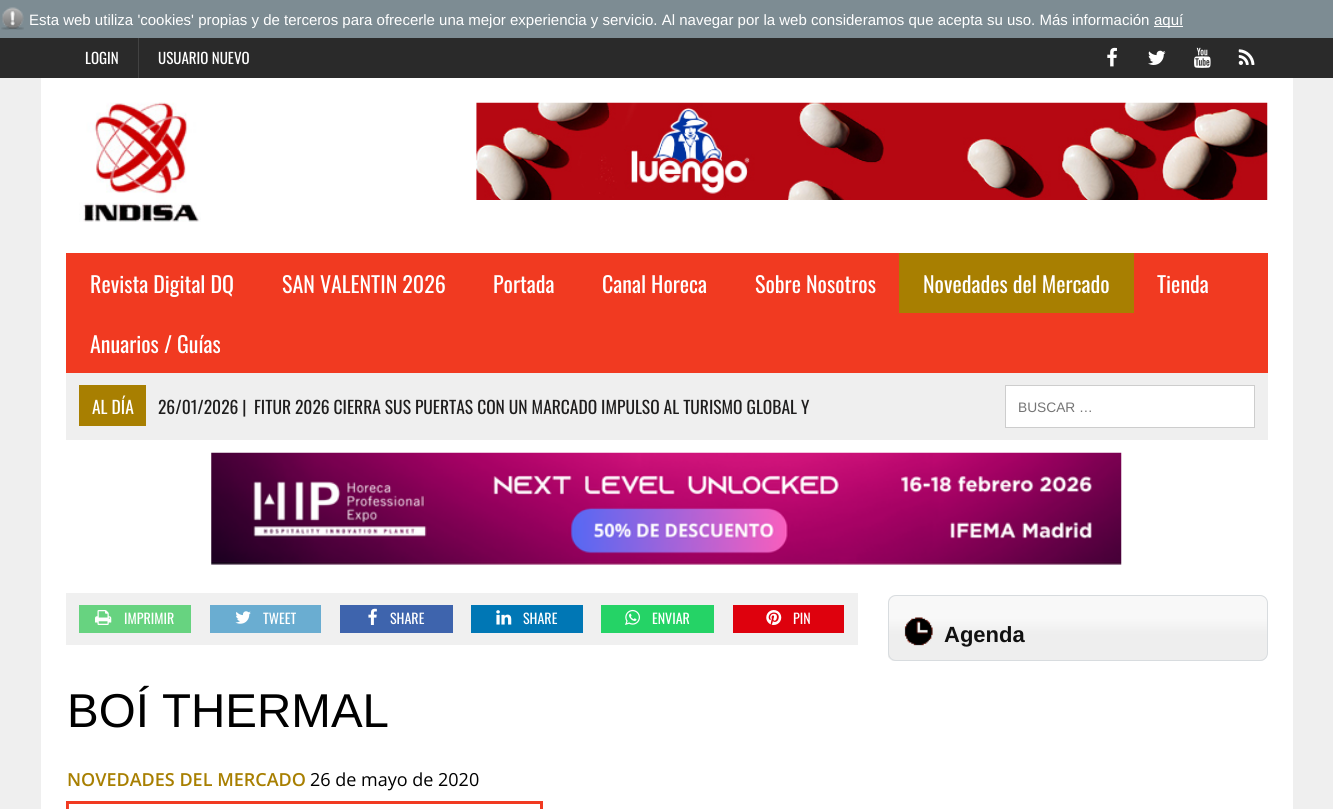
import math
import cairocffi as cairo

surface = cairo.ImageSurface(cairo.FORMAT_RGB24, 1333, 809)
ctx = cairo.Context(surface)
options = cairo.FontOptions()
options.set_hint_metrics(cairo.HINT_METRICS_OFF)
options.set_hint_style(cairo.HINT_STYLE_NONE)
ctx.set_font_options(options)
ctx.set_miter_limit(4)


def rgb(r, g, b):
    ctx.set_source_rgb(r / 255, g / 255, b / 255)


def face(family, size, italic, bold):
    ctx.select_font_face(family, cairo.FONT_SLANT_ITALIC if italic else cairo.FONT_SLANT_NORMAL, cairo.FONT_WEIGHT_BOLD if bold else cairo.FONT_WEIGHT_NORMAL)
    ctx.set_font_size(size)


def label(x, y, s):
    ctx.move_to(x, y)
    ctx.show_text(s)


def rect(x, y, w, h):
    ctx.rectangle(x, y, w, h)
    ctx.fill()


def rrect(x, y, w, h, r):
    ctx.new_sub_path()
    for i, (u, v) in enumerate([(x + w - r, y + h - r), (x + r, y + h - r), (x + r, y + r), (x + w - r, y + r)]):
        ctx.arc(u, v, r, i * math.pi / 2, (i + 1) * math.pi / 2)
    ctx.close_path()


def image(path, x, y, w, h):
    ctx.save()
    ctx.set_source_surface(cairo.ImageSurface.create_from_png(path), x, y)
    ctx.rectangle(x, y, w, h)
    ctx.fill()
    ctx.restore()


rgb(239, 239, 239)
ctx.paint()
rgb(125, 140, 147)
rect(0, 0, 1333, 38)
image('image0.png', 1, 7, 23, 23)
face('Liberation Sans', 15, 0, 0)
rgb(255, 255, 255)
label(29, 25, 'Esta web utiliza \'cookies\' propias y de terceros para ofrecerle una mejor experiencia y servicio. Al navegar por la web consideramos que acepta su uso. Más información')
rect(1154, 26, 29, 1)
label(1154, 25, 'aquí')
rgb(42, 42, 42)
rect(0, 38, 1333, 40)
face('Oswald', 15, 0, 0)
rgb(255, 255, 255)
label(85, 64, 'LOGIN')
rgb(66, 66, 66)
rect(138, 38, 1, 40)
rgb(255, 255, 255)
label(158, 64, 'USUARIO NUEVO')
image('image1.png', 1107, 47, 10, 20)
image('image2.png', 1148, 50, 18, 15)
image('image3.png', 1194, 47, 17, 21)
image('image4.png', 1238, 49, 17, 16)
rect(41, 78, 1252, 731)
image('image5.png', 79, 102, 122, 120)
image('image6.png', 476, 102, 792, 98)
rgb(241, 58, 33)
rect(66, 253, 1202, 120)
face('Oswald', 22, 0, 0)
rgb(255, 255, 255)
label(90, 293, 'Revista Digital DQ')
label(282, 293, 'SAN VALENTIN 2026')
label(493, 293, 'Portada')
label(602, 293, 'Canal Horeca')
label(755, 293, 'Sobre Nosotros')
rgb(168, 127, 1)
rect(899, 253, 235, 60)
rgb(255, 255, 255)
label(923, 293, 'Novedades del Mercado')
label(1157, 293, 'Tienda')
label(90, 353, 'Anuarios / Guías')
rgb(239, 239, 239)
rect(66, 373, 1202, 67)
rgb(168, 127, 1)
rect(79, 385, 67, 41)
face('Oswald', 17.5, 0, 0)
rgb(255, 255, 255)
label(92, 414, 'AL DÍA')
rgb(31, 30, 30)
label(158, 414, '26/01/2026 |')
label(254, 414, 'FITUR 2026 CIERRA SUS PUERTAS CON UN MARCADO IMPULSO AL TURISMO GLOBAL Y')
rgb(255, 255, 255)
ctx.rectangle(1005.5, 385.5, 249, 42)
ctx.fill_preserve()
rgb(205, 205, 205)
ctx.set_line_width(1)
ctx.stroke()
face('Liberation Sans', 13.75, 0, 0)
rgb(117, 117, 117)
label(1018, 412, 'BUSCAR …')
image('image7.png', 211, 452, 911, 113)
rgb(240, 240, 240)
rect(66, 593, 792, 52)
rgb(103, 211, 128)
rect(79, 605, 112, 28)
image('image8.png', 95, 610, 17, 15)
face('Oswald', 14, 0, 0)
rgb(255, 255, 255)
label(124, 624, 'IMPRIMIR')
rgb(106, 173, 209)
rect(210, 605, 111, 28)
image('image9.png', 235, 611, 16, 13)
rgb(255, 255, 255)
label(263, 624, 'TWEET')
rgb(62, 100, 173)
rect(340, 605, 113, 28)
image('image10.png', 368, 608, 9, 17)
rgb(255, 255, 255)
label(390, 624, 'SHARE')
rgb(0, 119, 181)
rect(471, 605, 112, 28)
image('image11.png', 496, 610, 16, 15)
rgb(255, 255, 255)
label(523, 624, 'SHARE')
rgb(37, 211, 102)
rect(601, 605, 113, 28)
image('image12.png', 625, 609, 15, 16)
rgb(255, 255, 255)
label(652, 624, 'ENVIAR')
rgb(222, 1, 13)
rect(733, 605, 111, 28)
image('image13.png', 766, 610, 16, 15)
rgb(255, 255, 255)
label(793, 624, 'PIN')
face('Liberation Sans', 47.5, 0, 0)
rgb(0, 0, 0)
label(67, 727, 'BOÍ THERMAL')
face('Open Sans SemiBold', 18, 0, 0)
rgb(168, 127, 1)
label(67, 786, 'NOVEDADES DEL MERCADO')
face('Open Sans', 18, 0, 0)
rgb(0, 0, 0)
label(310, 786, '26 de mayo de 2020')
ctx.rectangle(67.5, 802.5, 474, 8)
rgb(241, 58, 33)
ctx.set_line_width(3)
ctx.stroke()
rgb(242, 70, 46)
rect(68, 804, 1, 5)
image('image14.png', 888, 595, 379, 66)
rrect(888.5, 595.5, 379, 65, 7.5)
rgb(216, 220, 223)
ctx.set_line_width(1)
ctx.stroke()
image('image15.png', 904, 617, 29, 29)
face('Liberation Sans', 22, 0, 1)
rgb(17, 17, 17)
label(944, 642, 'Agenda')
surface.write_to_png('render.png')
